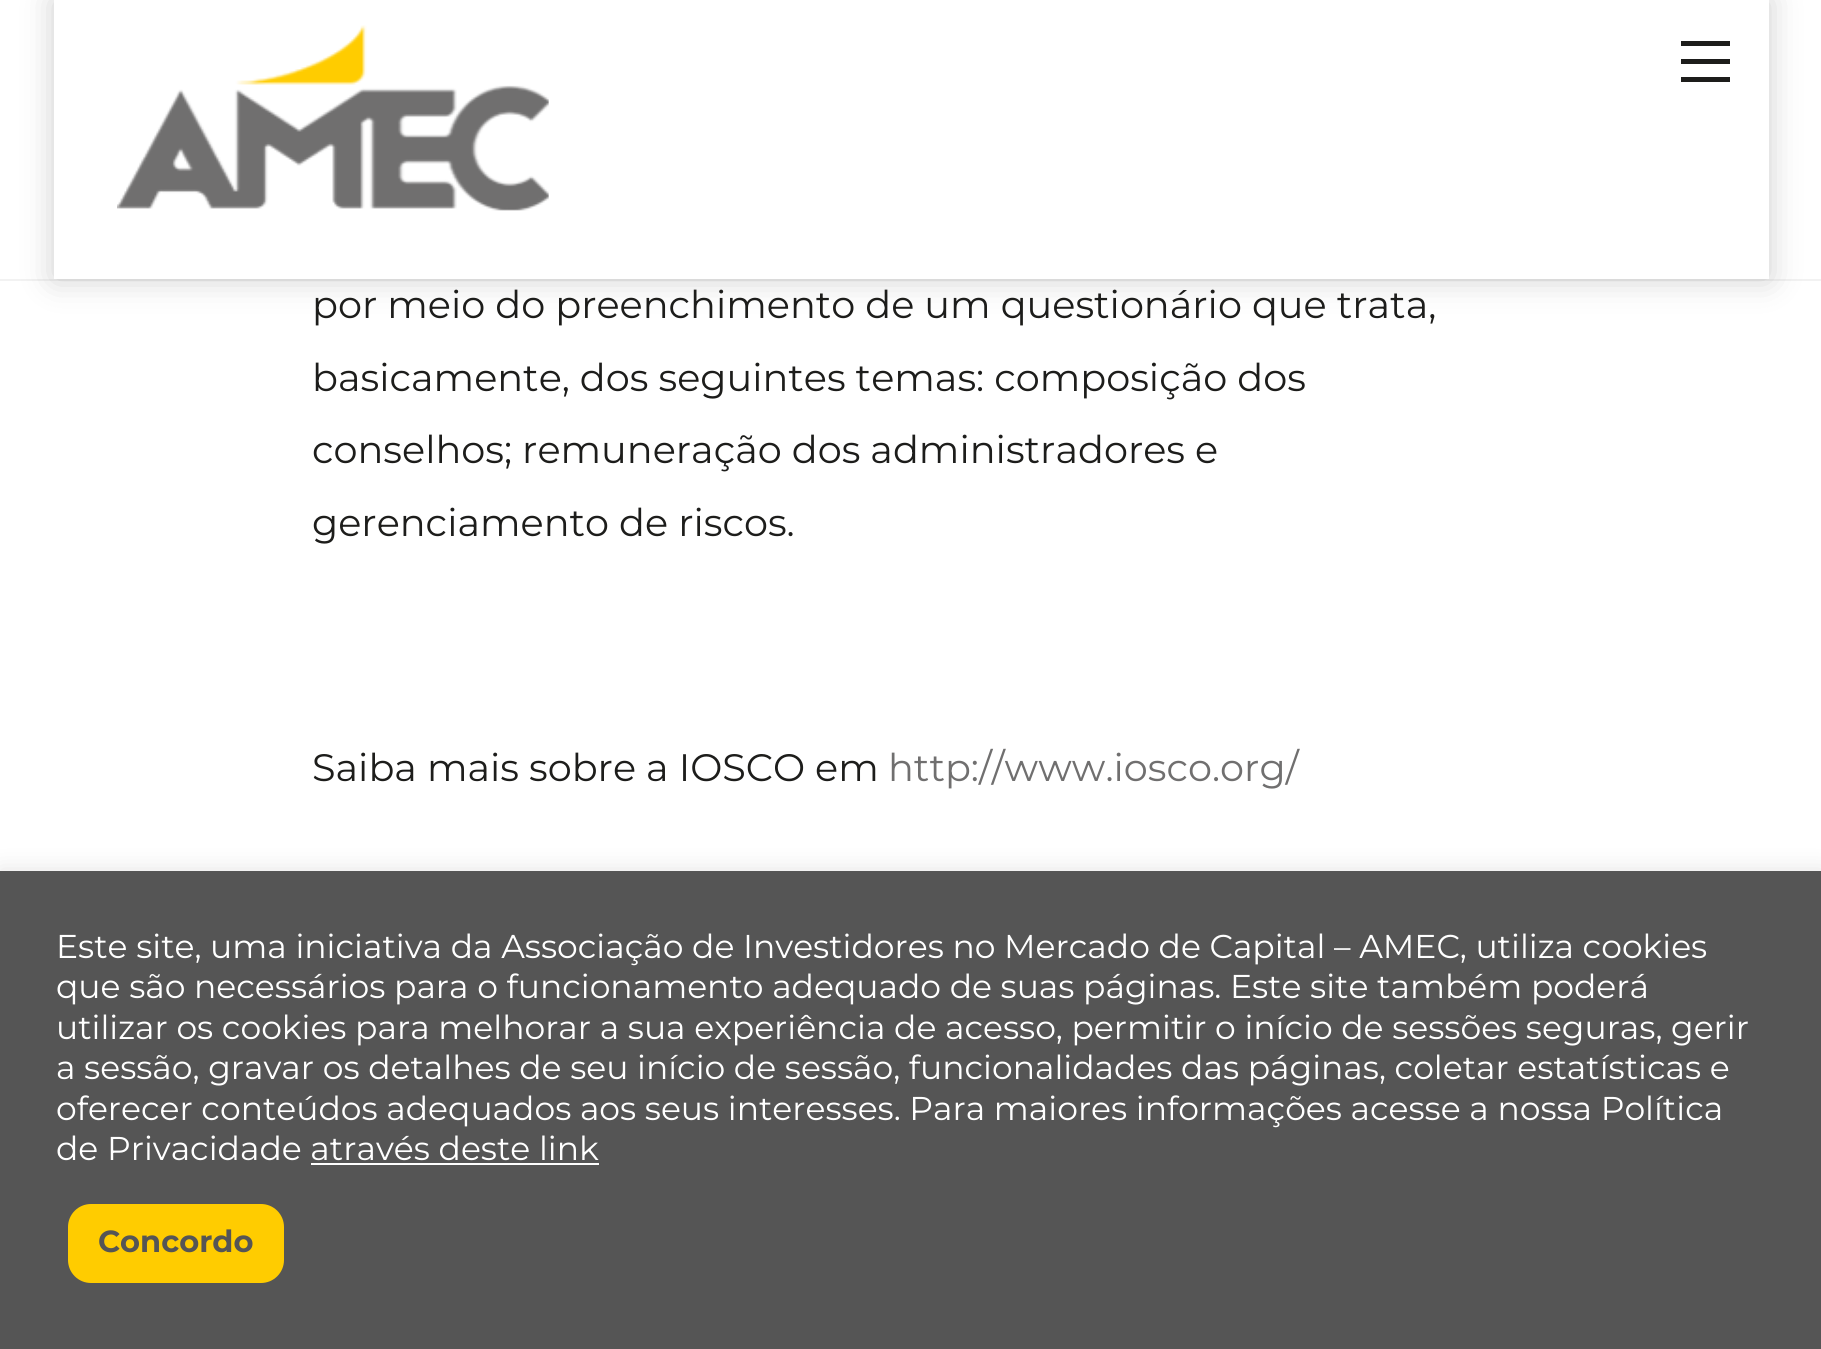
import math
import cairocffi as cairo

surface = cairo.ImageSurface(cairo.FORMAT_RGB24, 1821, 1349)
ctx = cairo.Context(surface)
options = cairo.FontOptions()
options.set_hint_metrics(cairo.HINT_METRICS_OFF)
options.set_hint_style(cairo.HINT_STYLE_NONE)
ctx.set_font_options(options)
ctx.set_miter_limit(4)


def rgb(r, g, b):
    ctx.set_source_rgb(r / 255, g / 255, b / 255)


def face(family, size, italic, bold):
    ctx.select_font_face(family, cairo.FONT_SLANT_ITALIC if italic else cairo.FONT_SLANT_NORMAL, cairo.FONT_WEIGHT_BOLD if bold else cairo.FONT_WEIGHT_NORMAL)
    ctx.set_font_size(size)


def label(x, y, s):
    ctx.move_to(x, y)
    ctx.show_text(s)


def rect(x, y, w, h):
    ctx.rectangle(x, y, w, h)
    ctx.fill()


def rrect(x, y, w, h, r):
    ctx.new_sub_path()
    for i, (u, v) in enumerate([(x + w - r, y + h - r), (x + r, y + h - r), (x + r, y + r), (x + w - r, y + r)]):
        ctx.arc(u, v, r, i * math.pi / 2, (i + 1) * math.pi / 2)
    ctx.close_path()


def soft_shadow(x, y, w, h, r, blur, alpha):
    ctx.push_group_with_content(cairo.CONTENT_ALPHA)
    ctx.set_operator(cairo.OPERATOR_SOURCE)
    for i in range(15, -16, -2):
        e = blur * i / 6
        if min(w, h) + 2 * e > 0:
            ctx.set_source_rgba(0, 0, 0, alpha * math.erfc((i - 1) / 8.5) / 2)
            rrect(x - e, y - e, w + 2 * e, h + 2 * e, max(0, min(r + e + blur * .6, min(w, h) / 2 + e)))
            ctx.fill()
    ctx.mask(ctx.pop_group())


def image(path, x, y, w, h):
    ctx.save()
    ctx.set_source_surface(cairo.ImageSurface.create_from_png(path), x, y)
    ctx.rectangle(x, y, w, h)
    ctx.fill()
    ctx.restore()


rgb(255, 255, 255)
ctx.paint()
rgb(242, 242, 242)
rect(0, 279, 1821, 2)
rgb(0, 0, 0)
soft_shadow(54, 0, 1715, 279, 0, 16, 0.2)
rgb(255, 255, 255)
rect(54, 0, 1715, 279)
image('image0.png', 117, 25, 432, 186)
rgb(29, 29, 27)
rect(1681, 77, 49, 5)
rect(1681, 41, 49, 5)
rect(1681, 59, 49, 5)
face('Montserrat Thin', 38.25, 0, 0)
label(312, 318, 'por meio do preenchimento de um questionário que trata,')
label(312, 391, 'basicamente, dos seguintes temas: composição dos')
label(312, 463, 'conselhos; remuneração dos administradores e')
label(312, 536, 'gerenciamento de riscos.')
label(312, 781, 'Saiba mais sobre a IOSCO em')
rgb(112, 111, 111)
label(888, 781, 'http://www.iosco.org/')
rgb(172, 171, 171)
soft_shadow(0, 869, 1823, 479, 0, 11, 0.3)
rgb(85, 85, 85)
rect(0, 871, 1821, 478)
face('Montserrat Thin', 33, 0, 0)
rgb(255, 255, 255)
label(56, 958, 'Este site, uma iniciativa da Associação de Investidores no Mercado de Capital – AMEC, utiliza cookies')
label(56, 998, 'que são necessários para o funcionamento adequado de suas páginas. Este site também poderá')
label(56, 1039, 'utilizar os cookies para melhorar a sua experiência de acesso, permitir o início de sessões seguras, gerir')
label(56, 1079, 'a sessão, gravar os detalhes de seu início de sessão, funcionalidades das páginas, coletar estatísticas e')
label(56, 1120, 'oferecer conteúdos adequados aos seus interesses. Para maiores informações acesse a nossa Política')
label(56, 1160, 'de Privacidade através deste link')
rect(311, 1163, 288, 2)
rgb(255, 204, 0)
rrect(68, 1204, 216, 79, 23)
ctx.fill()
face('Montserrat', 30.5, 0, 1)
rgb(85, 85, 85)
label(98, 1252, 'Concordo')
surface.write_to_png('render.png')
